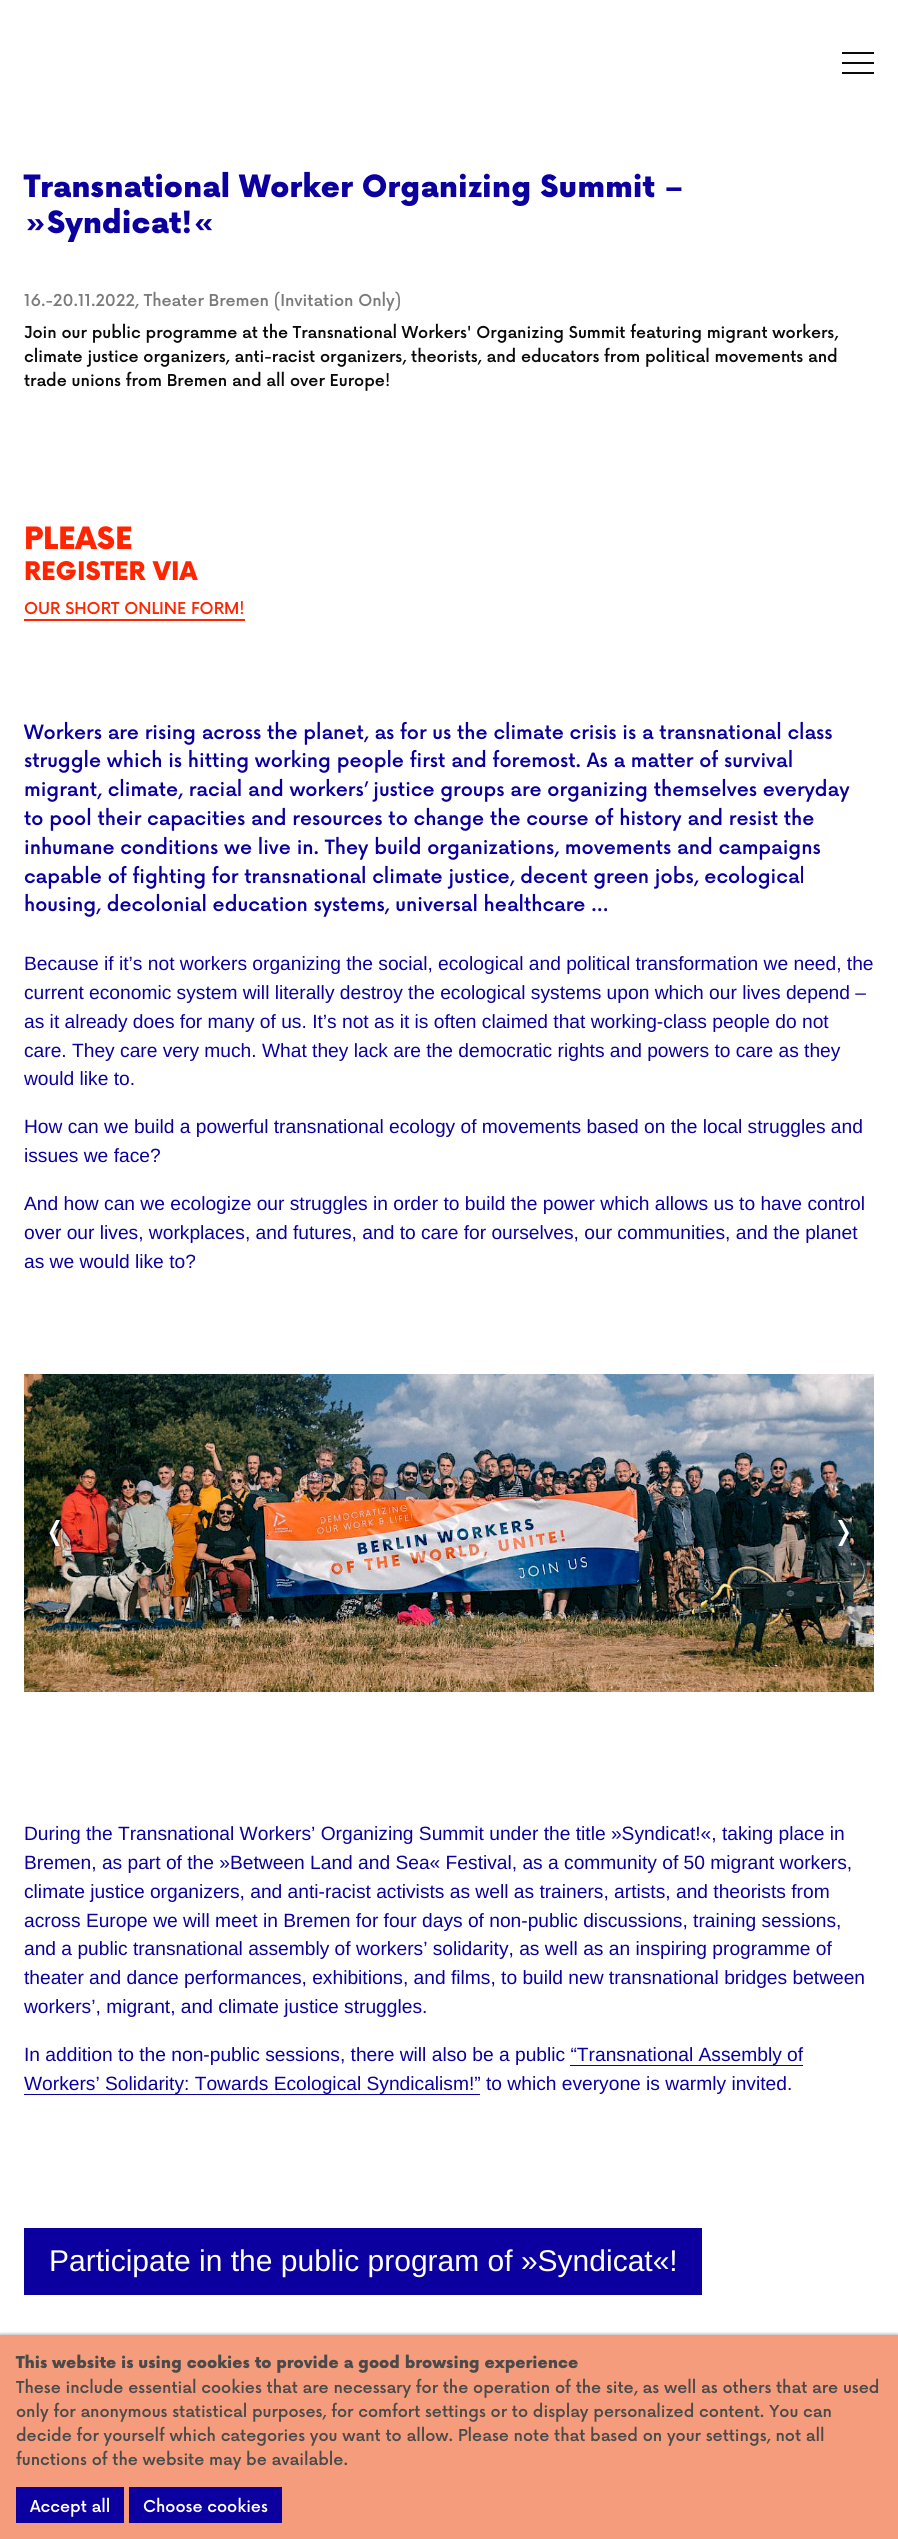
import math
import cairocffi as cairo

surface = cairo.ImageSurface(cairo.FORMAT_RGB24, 898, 2539)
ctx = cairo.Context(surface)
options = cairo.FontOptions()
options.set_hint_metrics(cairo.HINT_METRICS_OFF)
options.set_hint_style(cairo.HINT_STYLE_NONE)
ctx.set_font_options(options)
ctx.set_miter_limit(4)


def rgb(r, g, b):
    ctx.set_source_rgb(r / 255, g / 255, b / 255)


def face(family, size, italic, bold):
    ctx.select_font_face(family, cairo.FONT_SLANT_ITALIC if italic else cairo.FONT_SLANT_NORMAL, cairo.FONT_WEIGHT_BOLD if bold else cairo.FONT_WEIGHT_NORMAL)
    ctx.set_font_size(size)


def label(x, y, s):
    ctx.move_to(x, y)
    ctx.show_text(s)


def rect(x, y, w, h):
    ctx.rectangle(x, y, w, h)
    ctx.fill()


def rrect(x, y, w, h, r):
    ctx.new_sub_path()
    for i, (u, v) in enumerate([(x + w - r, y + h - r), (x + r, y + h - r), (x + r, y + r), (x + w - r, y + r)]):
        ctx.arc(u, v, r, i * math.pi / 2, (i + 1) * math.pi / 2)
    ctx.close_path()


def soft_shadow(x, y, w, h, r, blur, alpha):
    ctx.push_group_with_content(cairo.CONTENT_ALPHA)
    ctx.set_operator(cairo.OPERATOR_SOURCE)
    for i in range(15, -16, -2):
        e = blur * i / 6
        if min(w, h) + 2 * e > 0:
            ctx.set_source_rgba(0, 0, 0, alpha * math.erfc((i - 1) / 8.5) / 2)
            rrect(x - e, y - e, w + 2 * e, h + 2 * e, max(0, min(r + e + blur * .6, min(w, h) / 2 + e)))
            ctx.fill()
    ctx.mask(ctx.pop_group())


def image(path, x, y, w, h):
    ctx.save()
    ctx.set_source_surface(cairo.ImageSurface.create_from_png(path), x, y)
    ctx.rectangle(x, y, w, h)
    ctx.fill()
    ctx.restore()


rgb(255, 255, 255)
ctx.paint()
rgb(10, 10, 10)
rect(842, 52, 32, 2)
rect(842, 62, 32, 2)
rect(842, 72, 32, 2)
face('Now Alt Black', 30, 0, 0)
rgb(11, 0, 159)
label(24, 197, 'Transnational Worker Organizing Summit –')
label(24, 233, '»Syndicat!«')
face('Now Alt Medium', 16, 0, 0)
rgb(122, 122, 122)
label(24, 306, '16.-20.11.2022, Theater Bremen (Invitation Only)')
rgb(10, 10, 10)
label(24, 338, 'Join our public programme at the Transnational Workers\' Organizing Summit featuring migrant workers,')
label(24, 362, 'climate justice organizers, anti-racist organizers, theorists, and educators from political movements and')
label(24, 386, 'trade unions from Bremen and all over Europe!')
face('Now Alt Black', 30, 0, 0)
rgb(255, 37, 0)
label(24, 549, 'PLEASE')
face('Now Alt Black', 25, 0, 0)
label(24, 580, 'REGISTER VIA')
face('Now Alt Medium', 16, 0, 0)
label(24, 614, 'OUR SHORT ONLINE FORM!')
rect(24, 619, 221, 2)
face('Now Alt Medium', 19.2, 0, 0)
rgb(11, 0, 159)
label(24, 739, 'Workers are rising across the planet, as for us the climate crisis is a transnational class')
label(24, 767, 'struggle which is hitting working people first and foremost. As a matter of survival')
label(24, 796, 'migrant, climate, racial and workers’ justice groups are organizing themselves everyday')
label(24, 825, 'to pool their capacities and resources to change the course of history and resist the')
label(24, 854, 'inhumane conditions we live in. They build organizations, movements and campaigns')
label(24, 883, 'capable of fighting for transnational climate justice, decent green jobs, ecological')
label(24, 911, 'housing, decolonial education systems, universal healthcare …')
face('Liberation Sans', 19.2, 0, 0)
label(24, 970, 'Because if it’s not workers organizing the social, ecological and political transformation we need, the')
label(24, 999, 'current economic system will literally destroy the ecological systems upon which our lives depend –')
label(24, 1028, 'as it already does for many of us. It’s not as it is often claimed that working-class people do not')
label(24, 1057, 'care. They care very much. What they lack are the democratic rights and powers to care as they')
label(24, 1085, 'would like to.')
label(24, 1133, 'How can we build a powerful transnational ecology of movements based on the local struggles and')
label(24, 1162, 'issues we face?')
label(24, 1210, 'And how can we ecologize our struggles in order to build the power which allows us to have control')
label(24, 1239, 'over our lives, workplaces, and futures, and to care for ourselves, our communities, and the planet')
label(24, 1268, 'as we would like to?')
image('image0.png', 24, 1374, 850, 318)
ctx.save()
ctx.rectangle(43, 1520, 26, 26)
ctx.clip()
rgb(255, 255, 255)
ctx.new_path()
ctx.move_to(49.5, 1533)
ctx.line_to(56, 1546.5)
ctx.line_to(60, 1546.5)
ctx.line_to(53.5, 1533)
ctx.line_to(60, 1520)
ctx.line_to(56, 1520)
ctx.close_path()
ctx.fill()
ctx.restore()
ctx.save()
ctx.rectangle(829, 1520, 26, 26)
ctx.clip()
rgb(255, 255, 255)
ctx.new_path()
ctx.move_to(849, 1533)
ctx.line_to(842, 1520)
ctx.line_to(838, 1520)
ctx.line_to(845, 1533)
ctx.line_to(838, 1546.5)
ctx.line_to(842, 1546.5)
ctx.close_path()
ctx.fill()
ctx.restore()
label(24, 1840, 'During the Transnational Workers’ Organizing Summit under the title »Syndicat!«, taking place in')
label(24, 1869, 'Bremen, as part of the »Between Land and Sea« Festival, as a community of 50 migrant workers,')
label(24, 1898, 'climate justice organizers, and anti-racist activists as well as trainers, artists, and theorists from')
label(24, 1927, 'across Europe we will meet in Bremen for four days of non-public discussions, training sessions,')
label(24, 1955, 'and a public transnational assembly of workers’ solidarity, as well as an inspiring programme of')
label(24, 1984, 'theater and dance performances, exhibitions, and films, to build new transnational bridges between')
label(24, 2013, 'workers’, migrant, and climate justice struggles.')
label(24, 2061, 'In addition to the non-public sessions, there will also be a public “Transnational Assembly of')
label(24, 2090, 'Workers’ Solidarity: Towards Ecological Syndicalism!” to which everyone is warmly invited.')
rect(570, 2065, 233, 1)
rect(24, 2094, 456, 1)
rect(24, 2228, 678, 67)
face('Liberation Sans', 30, 0, 0)
rgb(255, 255, 255)
label(49, 2271, 'Participate in the public program of »Syndicat«!')
rgb(0, 0, 0)
soft_shadow(0, 2334, 898, 204, 0, 1.5, 0.3)
rgb(244, 156, 124)
rect(0, 2335, 898, 204)
face('Now Alt Black', 16, 0, 0)
rgb(74, 74, 74)
label(16, 2368, 'This website is using cookies to provide a good browsing experience')
face('Now Alt Medium', 16, 0, 0)
label(16, 2393, 'These include essential cookies that are necessary for the operation of the site, as well as others that are used')
label(16, 2417, 'only for anonymous statistical purposes, for comfort settings or to display personalized content. You can')
label(16, 2441, 'decide for yourself which categories you want to allow. Please note that based on your settings, not all')
label(16, 2465, 'functions of the website may be available.')
rgb(11, 0, 159)
rect(16, 2487, 108, 36)
rgb(255, 255, 255)
label(30, 2512, 'Accept all')
rgb(11, 0, 159)
rect(129, 2487, 153, 36)
rgb(255, 255, 255)
label(143, 2512, 'Choose cookies')
surface.write_to_png('render.png')
